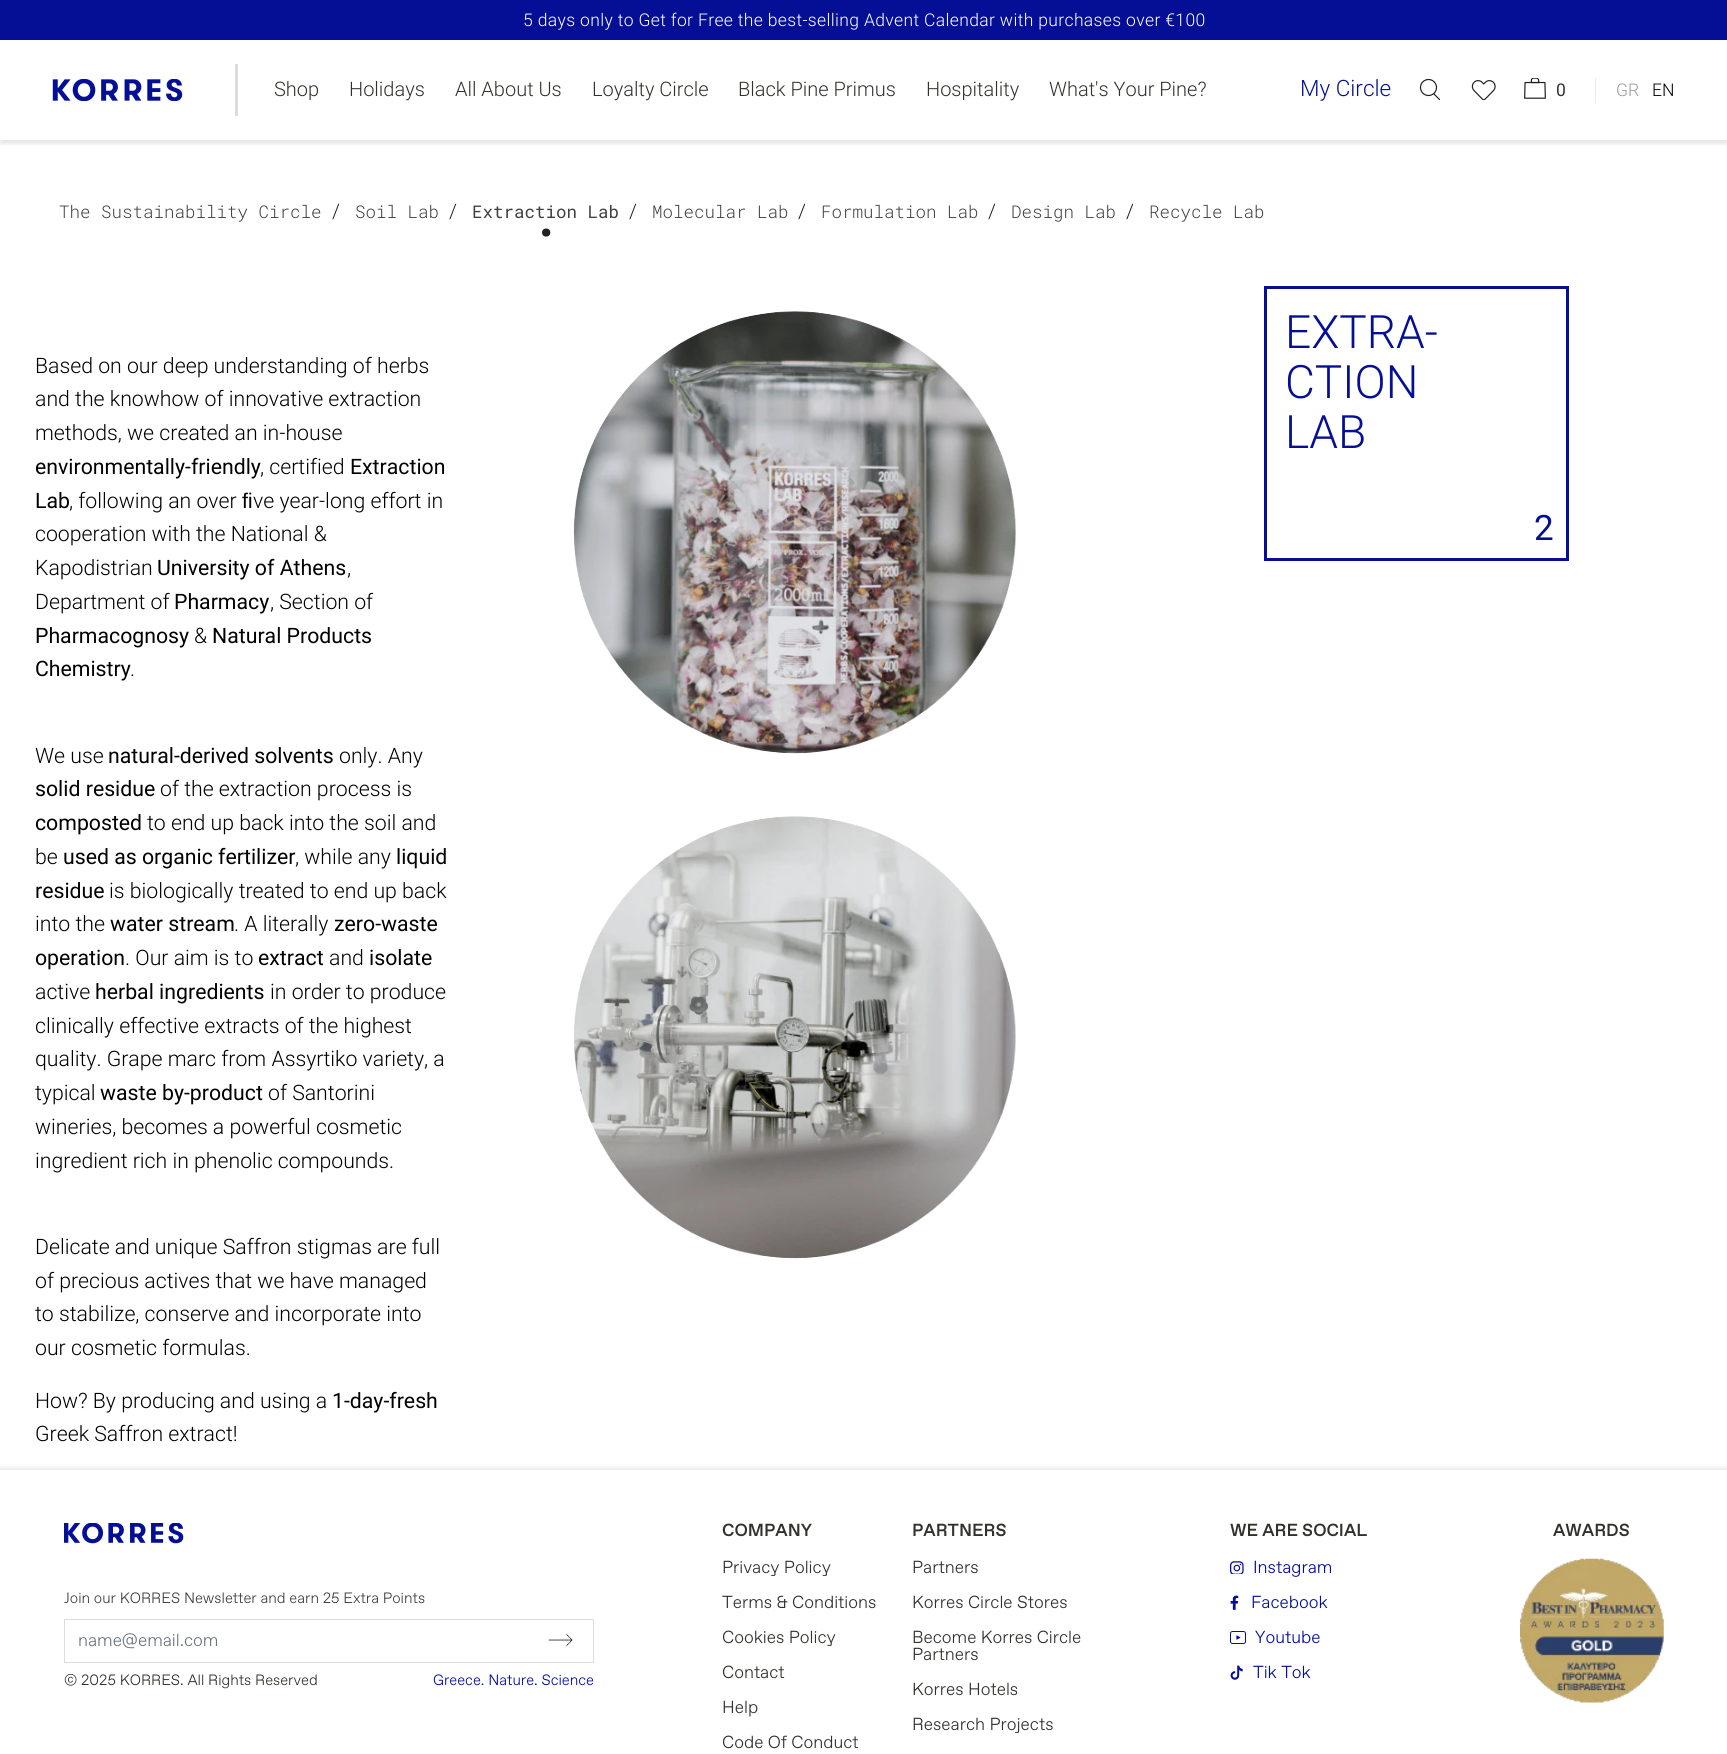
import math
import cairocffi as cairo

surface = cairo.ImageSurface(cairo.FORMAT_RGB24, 1727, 1754)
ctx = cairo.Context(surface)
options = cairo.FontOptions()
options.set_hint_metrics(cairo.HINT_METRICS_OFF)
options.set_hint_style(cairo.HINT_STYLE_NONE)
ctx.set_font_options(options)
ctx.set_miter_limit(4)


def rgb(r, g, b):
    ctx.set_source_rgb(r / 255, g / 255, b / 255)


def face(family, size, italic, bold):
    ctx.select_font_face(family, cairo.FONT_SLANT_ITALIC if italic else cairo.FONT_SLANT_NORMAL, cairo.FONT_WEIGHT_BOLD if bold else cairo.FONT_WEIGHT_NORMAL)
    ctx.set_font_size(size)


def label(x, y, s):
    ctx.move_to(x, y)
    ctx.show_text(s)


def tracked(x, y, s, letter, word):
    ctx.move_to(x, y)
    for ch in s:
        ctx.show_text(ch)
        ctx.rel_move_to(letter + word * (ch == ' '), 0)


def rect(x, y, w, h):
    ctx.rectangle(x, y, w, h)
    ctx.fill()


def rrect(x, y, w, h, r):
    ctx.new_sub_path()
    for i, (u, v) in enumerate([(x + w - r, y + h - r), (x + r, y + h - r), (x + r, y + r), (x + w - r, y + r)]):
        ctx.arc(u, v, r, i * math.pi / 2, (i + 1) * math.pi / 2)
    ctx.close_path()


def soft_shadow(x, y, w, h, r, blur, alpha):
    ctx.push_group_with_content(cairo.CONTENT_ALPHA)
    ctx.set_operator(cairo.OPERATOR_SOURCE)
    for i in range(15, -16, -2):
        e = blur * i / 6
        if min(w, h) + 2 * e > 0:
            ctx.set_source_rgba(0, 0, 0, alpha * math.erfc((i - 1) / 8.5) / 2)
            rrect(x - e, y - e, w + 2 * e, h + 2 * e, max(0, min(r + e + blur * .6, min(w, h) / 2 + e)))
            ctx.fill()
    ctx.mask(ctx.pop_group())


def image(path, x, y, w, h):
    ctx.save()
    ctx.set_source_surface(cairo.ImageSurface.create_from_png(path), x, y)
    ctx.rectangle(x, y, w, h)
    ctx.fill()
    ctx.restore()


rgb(255, 255, 255)
ctx.paint()
rgb(5, 15, 150)
rect(0, 0, 1727, 40)
face('Roboto Light', 17.5, 0, 0)
rgb(255, 255, 255)
tracked(523, 26, '5 days only to Get for Free the best-selling Advent Calendar with purchases over €100', 0.35, 0)
ctx.save()
ctx.rectangle(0, 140, 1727, 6)
ctx.clip()
rgb(0, 0, 0)
soft_shadow(0, 44, 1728, 100, 0, 2, 0.1)
ctx.restore()
rgb(220, 220, 220)
rect(235, 64, 3, 52)
image('image0.png', 52, 79, 131, 22)
face('Roboto Light', 20, 0, 0)
rgb(50, 50, 45)
label(274, 96, 'Shop')
label(349, 96, 'Holidays')
label(455, 96, 'All About Us')
label(592, 96, 'Loyalty Circle')
label(738, 96, 'Black Pine Primus')
label(926, 96, 'Hospitality')
label(1049, 96, 'What\'s Your Pine?')
face('Roboto Light', 22.5, 0, 0)
rgb(5, 15, 150)
label(1300, 96, 'My Circle')
ctx.new_path()
ctx.arc(1428.5, 87.5, 8, 0, 2 * math.pi)
rgb(35, 31, 32)
ctx.set_line_width(1.2)
ctx.stroke()
ctx.new_path()
ctx.move_to(1434, 94)
ctx.line_to(1439.5, 99.5)
ctx.set_line_cap(cairo.LINE_CAP_ROUND)
ctx.set_line_join(cairo.LINE_JOIN_ROUND)
ctx.stroke()
image('image1.png', 1471, 80, 25, 20)
image('image2.png', 1524, 78, 22, 21)
face('Roboto', 17.5, 0, 0)
rgb(50, 50, 45)
label(1556, 96, '0')
rgb(234, 234, 234)
rect(1595, 78, 1, 25)
face('Roboto Light', 17.5, 0, 0)
rgb(153, 153, 153)
label(1616, 96, 'GR')
rgb(0, 0, 0)
label(1652, 96, 'EN')
face('Roboto Mono Light', 17.5, 0, 0)
rgb(64, 64, 65)
label(59, 218, 'The Sustainability Circle')
face('Roboto Light', 20, 0, 0)
rgb(35, 31, 32)
label(332, 218, '/')
face('Roboto Mono Light', 17.5, 0, 0)
rgb(64, 64, 65)
label(355, 218, 'Soil Lab')
face('Roboto Light', 20, 0, 0)
rgb(35, 31, 32)
label(449, 218, '/')
face('Roboto Mono', 17.5, 0, 0)
rgb(64, 64, 65)
label(472, 218, 'Extraction Lab')
face('Roboto Mono', 58, 0, 0)
rgb(35, 31, 32)
label(528, 236, '.')
face('Roboto Light', 20, 0, 0)
label(629, 218, '/')
face('Roboto Mono Light', 17.5, 0, 0)
rgb(64, 64, 65)
label(652, 218, 'Molecular Lab')
face('Roboto Light', 20, 0, 0)
rgb(35, 31, 32)
label(798, 218, '/')
face('Roboto Mono Light', 17.5, 0, 0)
rgb(64, 64, 65)
label(821, 218, 'Formulation Lab')
face('Roboto Light', 20, 0, 0)
rgb(35, 31, 32)
label(988, 218, '/')
face('Roboto Mono Light', 17.5, 0, 0)
rgb(64, 64, 65)
label(1011, 218, 'Design Lab')
face('Roboto Light', 20, 0, 0)
rgb(35, 31, 32)
label(1126, 218, '/')
face('Roboto Mono Light', 17.5, 0, 0)
rgb(64, 64, 65)
label(1149, 218, 'Recycle Lab')
face('Roboto Light', 21.25, 0, 0)
rgb(0, 0, 0)
label(35, 373, 'Based on our deep understanding of herbs')
label(35, 406, 'and the knowhow of innovative extraction')
label(35, 440, 'methods, we created an in-house')
face('Roboto', 21.25, 0, 0)
label(35, 474, 'environmentally-friendly')
face('Roboto Light', 21.25, 0, 0)
label(260, 474, ', certified')
face('Roboto', 21.25, 0, 0)
label(350, 474, 'Extraction')
label(35, 508, 'Lab')
face('Roboto Light', 21.25, 0, 0)
label(69, 508, ', following an over')
face('Liberation Sans', 21.25, 0, 0)
label(242, 508, 'ﬁ')
face('Roboto Light', 21.25, 0, 0)
label(253, 508, 've year-long effort in')
label(35, 541, 'cooperation with the National &')
label(35, 575, 'Kapodistrian')
face('Roboto', 21.25, 0, 0)
label(157, 575, 'University of Athens')
face('Roboto Light', 21.25, 0, 0)
label(347, 575, ',')
label(35, 609, 'Department of')
face('Roboto', 21.25, 0, 0)
label(174, 609, 'Pharmacy')
face('Roboto Light', 21.25, 0, 0)
label(270, 609, ', Section of')
face('Roboto', 21.25, 0, 0)
label(35, 643, 'Pharmacognosy')
face('Roboto Light', 21.25, 0, 0)
label(194, 643, '&')
face('Roboto', 21.25, 0, 0)
label(212, 643, 'Natural Products')
label(35, 676, 'Chemistry')
face('Roboto Light', 21.25, 0, 0)
label(130, 676, '.')
label(35, 763, 'We use')
face('Roboto', 21.25, 0, 0)
label(108, 763, 'natural-derived solvents')
face('Roboto Light', 21.25, 0, 0)
label(339, 763, 'only. Αny')
face('Roboto', 21.25, 0, 0)
label(35, 796, 'solid residue')
face('Roboto Light', 21.25, 0, 0)
label(160, 796, 'of the extraction process is')
face('Roboto', 21.25, 0, 0)
label(35, 830, 'composted')
face('Roboto Light', 21.25, 0, 0)
label(147, 830, 'to end up back into the soil and')
label(35, 864, 'be')
face('Roboto', 21.25, 0, 0)
label(63, 864, 'used as organic fertilizer')
face('Roboto Light', 21.25, 0, 0)
label(295, 864, ', while any')
face('Roboto', 21.25, 0, 0)
label(396, 864, 'liquid')
label(35, 898, 'residue')
face('Roboto Light', 21.25, 0, 0)
label(109, 898, 'is biologically treated to end up back')
label(35, 931, 'into the')
face('Roboto', 21.25, 0, 0)
label(110, 931, 'water stream')
face('Roboto Light', 21.25, 0, 0)
label(234, 931, '. A literally')
face('Roboto', 21.25, 0, 0)
label(334, 931, 'zero-waste')
label(35, 965, 'operation')
face('Roboto Light', 21.25, 0, 0)
label(125, 965, '. Our aim is to')
face('Roboto', 21.25, 0, 0)
label(258, 965, 'extract')
face('Roboto Light', 21.25, 0, 0)
label(329, 965, 'and')
face('Roboto', 21.25, 0, 0)
label(369, 965, 'isolate')
face('Roboto Light', 21.25, 0, 0)
label(35, 999, 'active')
face('Roboto', 21.25, 0, 0)
label(95, 999, 'herbal ingredients')
face('Roboto Light', 21.25, 0, 0)
label(270, 999, 'in order to produce')
label(35, 1033, 'clinically effective extracts of the highest')
label(35, 1066, 'quality. Grape marc from Assyrtiko variety, a')
label(35, 1100, 'typical')
face('Roboto', 21.25, 0, 0)
label(100, 1100, 'waste by-product')
face('Roboto Light', 21.25, 0, 0)
label(268, 1100, 'of Santorini')
label(35, 1134, 'wineries, becomes a powerful cosmetic')
label(35, 1168, 'ingredient rich in phenolic compounds.')
label(35, 1254, 'Delicate and unique Saffron stigmas are full')
label(35, 1288, 'of precious actives that we have managed')
label(35, 1321, 'to stabilize, conserve and incorporate into')
label(35, 1355, 'our cosmetic formulas.')
label(35, 1408, 'How? By producing and using a')
face('Roboto', 21.25, 0, 0)
label(332, 1408, '1-day-fresh')
face('Roboto Light', 21.25, 0, 0)
label(35, 1441, 'Greek Saffron extract!')
image('image3.png', 573, 311, 443, 443)
image('image4.png', 574, 816, 442, 443)
ctx.rectangle(1265.5, 287.5, 302, 272)
rgb(5, 15, 150)
ctx.set_line_width(3)
ctx.set_line_cap(cairo.LINE_CAP_BUTT)
ctx.set_line_join(cairo.LINE_JOIN_MITER)
ctx.stroke()
face('Roboto Light', 46, 0, 0)
label(1285, 348, 'EXTRA-')
label(1285, 398, 'CTION')
label(1285, 448, 'LAB')
face('Roboto', 35, 0, 0)
label(1534, 540, '2')
rgb(0, 0, 0)
soft_shadow(0, 1470, 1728, 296, 0, 4, 0.16)
rgb(255, 255, 255)
rect(0, 1470, 1727, 284)
face('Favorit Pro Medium', 17.5, 0, 0)
rgb(50, 50, 45)
label(722, 1536, 'COMPANY')
face('Favorit Pro Light', 17.5, 0, 0)
label(722, 1573, 'Privacy Policy')
label(722, 1608, 'Terms & Conditions')
label(722, 1643, 'Cookies Policy')
label(722, 1678, 'Contact')
label(722, 1713, 'Help')
label(722, 1748, 'Code Of Conduct')
face('Favorit Pro Medium', 17.5, 0, 0)
label(912, 1536, 'PARTNERS')
face('Favorit Pro Light', 17.5, 0, 0)
label(912, 1573, 'Partners')
label(912, 1608, 'Korres Circle Stores')
label(912, 1643, 'Become Korres Circle')
label(912, 1660, 'Partners')
label(912, 1695, 'Korres Hotels')
label(912, 1730, 'Research Projects')
face('Favorit Pro Medium', 17.5, 0, 0)
label(1230, 1536, 'WE ARE SOCIAL')
image('image5.png', 1230, 1561, 14, 13)
face('Favorit Pro Light', 17.5, 0, 0)
rgb(5, 15, 150)
label(1253, 1573, 'Instagram')
image('image6.png', 1230, 1595, 9, 15)
label(1251, 1608, 'Facebook')
image('image7.png', 1230, 1631, 16, 13)
label(1255, 1643, 'Youtube')
image('image8.png', 1230, 1665, 13, 15)
label(1253, 1678, 'Tik Tok')
face('Favorit Pro Medium', 17.5, 0, 0)
rgb(50, 50, 45)
label(1553, 1536, 'AWARDS')
image('image9.png', 1520, 1558, 144, 145)
image('image10.png', 64, 1523, 120, 21)
face('Favorit Pro Light', 15, 0, 0)
rgb(64, 64, 65)
label(64, 1603, 'Join our KORRES Newsletter and earn 25 Extra Points')
ctx.rectangle(64.5, 1619.5, 529, 43)
rgb(220, 220, 220)
ctx.set_line_width(1)
ctx.stroke()
face('Favorit Pro Light', 17.5, 0, 0)
rgb(108, 117, 125)
label(78, 1646, 'name@email.com')
image('image11.png', 548, 1633, 25, 14)
face('Favorit Pro Light', 15, 0, 0)
rgb(50, 50, 45)
label(64, 1685, '© 2025 KORRES. All Rights Reserved')
rgb(5, 15, 150)
label(433, 1685, 'Greece. Nature. Science')
surface.write_to_png('render.png')
